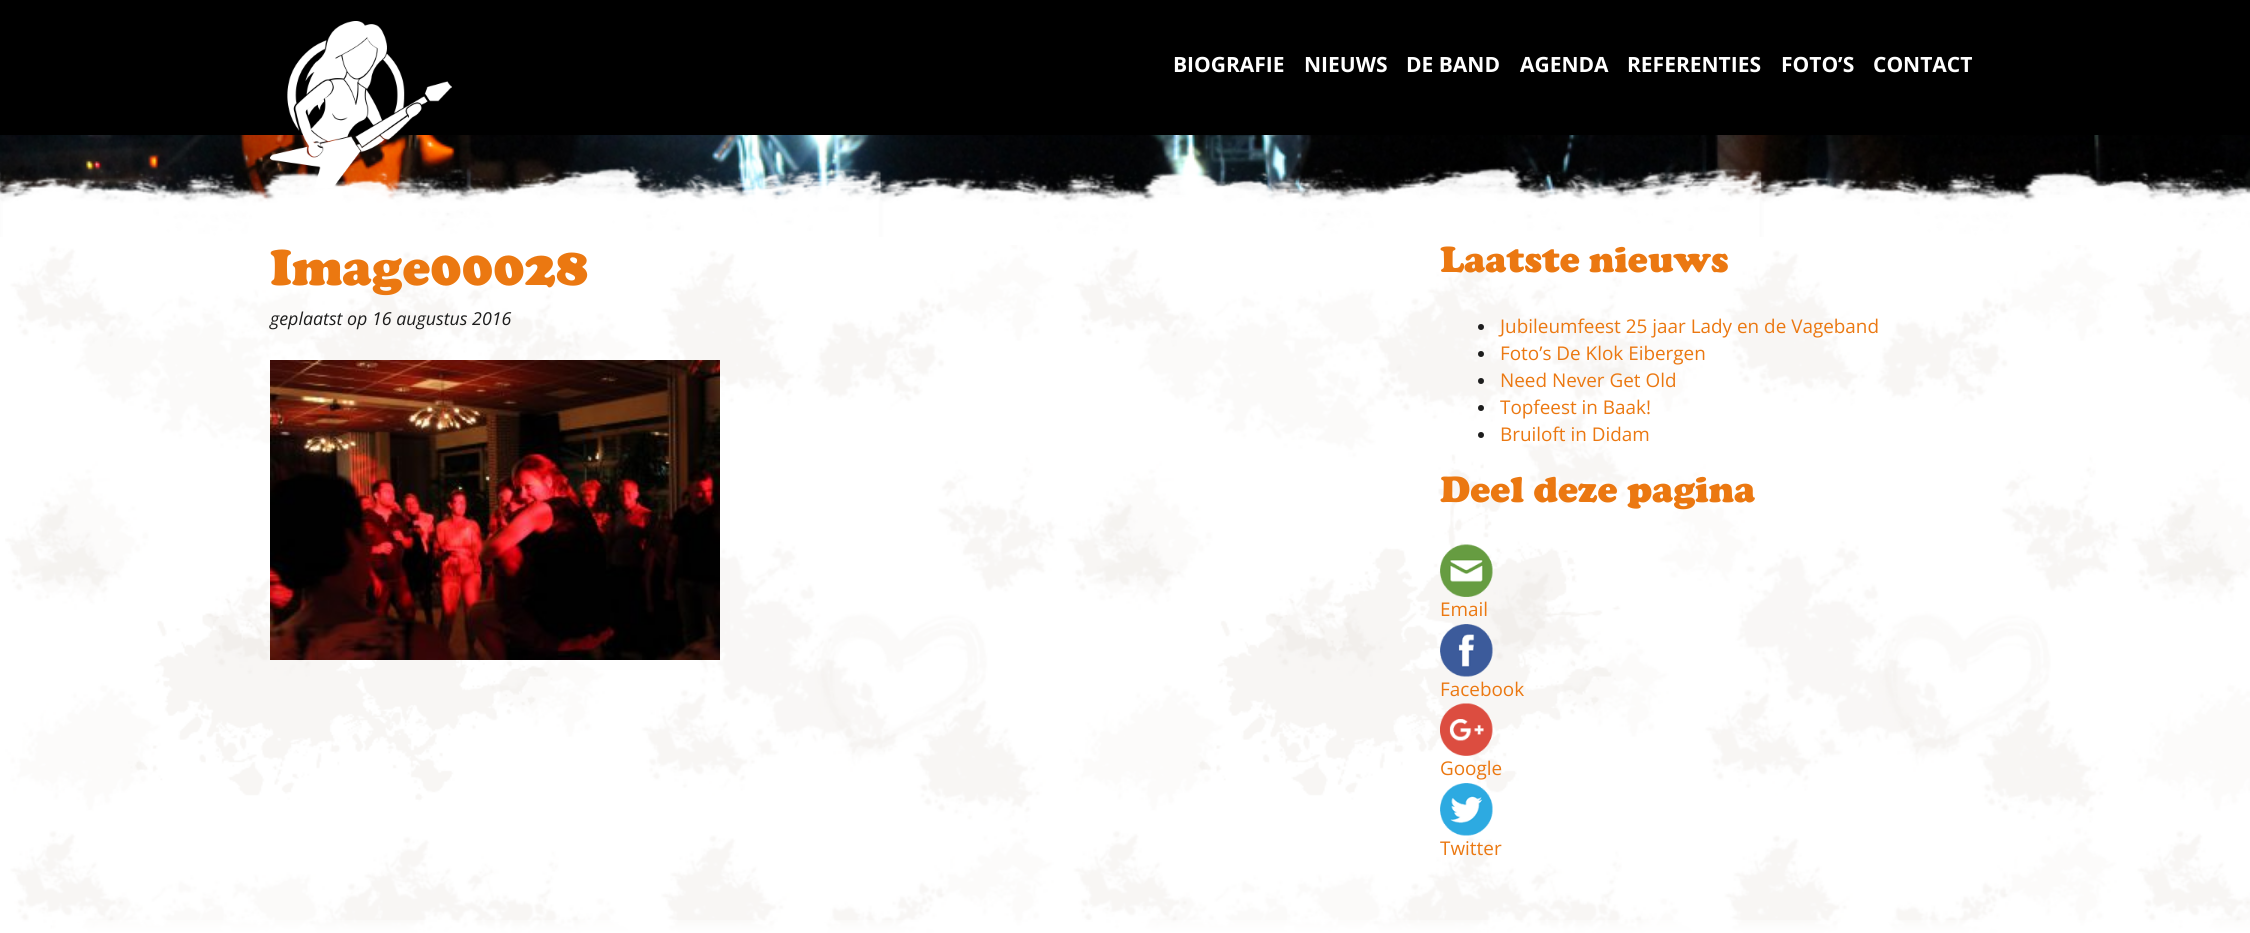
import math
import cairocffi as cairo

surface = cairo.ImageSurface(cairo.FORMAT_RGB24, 2250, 933)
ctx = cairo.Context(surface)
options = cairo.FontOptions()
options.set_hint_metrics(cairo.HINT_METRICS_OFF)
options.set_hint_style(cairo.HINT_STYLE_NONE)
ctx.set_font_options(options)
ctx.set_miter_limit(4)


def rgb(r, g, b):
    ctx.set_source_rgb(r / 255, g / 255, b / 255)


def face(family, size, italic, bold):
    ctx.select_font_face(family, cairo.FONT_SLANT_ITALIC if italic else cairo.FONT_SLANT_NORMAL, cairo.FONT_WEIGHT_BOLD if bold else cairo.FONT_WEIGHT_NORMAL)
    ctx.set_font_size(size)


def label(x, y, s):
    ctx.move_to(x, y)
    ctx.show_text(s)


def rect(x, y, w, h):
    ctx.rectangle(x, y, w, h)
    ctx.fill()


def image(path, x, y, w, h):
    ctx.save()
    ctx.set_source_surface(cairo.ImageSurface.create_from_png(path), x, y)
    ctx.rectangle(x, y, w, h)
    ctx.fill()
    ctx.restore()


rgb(255, 255, 255)
ctx.paint()
rgb(0, 0, 0)
rect(0, 0, 2250, 135)
image('image1.png', 0, 135, 2250, 102)
image('image2.png', 0, 166, 2250, 71)
image('image0.png', 270, 21, 182, 167)
face('Open Sans', 21, 0, 1)
rgb(255, 255, 255)
label(1173, 72, 'BIOGRAFIE')
label(1304, 72, 'NIEUWS')
label(1406, 72, 'DE BAND')
label(1520, 72, 'AGENDA')
label(1627, 72, 'REFERENTIES')
label(1781, 72, 'FOTO’S')
label(1873, 72, 'CONTACT')
image('image3.png', 5, 245, 2245, 688)
face('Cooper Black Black', 52.5, 0, 0)
rgb(235, 120, 17)
label(270, 285, 'Image00028')
face('Open Sans', 17.8, 1, 0)
rgb(29, 29, 29)
label(270, 325, 'geplaatst op 16 augustus 2016')
image('image4.png', 270, 360, 450, 300)
face('Cooper Black Black', 37.75, 0, 0)
rgb(235, 120, 17)
label(1440, 272, 'Laatste nieuws')
rgb(29, 29, 29)
ctx.new_path()
ctx.arc(1481, 327, 3, 0, 2 * math.pi)
ctx.fill()
face('Open Sans', 18.9, 0, 0)
rgb(235, 120, 17)
label(1500, 333, 'Jubileumfeest 25 jaar Lady en de Vageband')
rgb(29, 29, 29)
ctx.new_path()
ctx.arc(1481, 354, 3, 0, 2 * math.pi)
ctx.fill()
rgb(235, 120, 17)
label(1500, 360, 'Foto’s De Klok Eibergen')
rgb(29, 29, 29)
ctx.new_path()
ctx.arc(1481, 381, 3, 0, 2 * math.pi)
ctx.fill()
rgb(235, 120, 17)
label(1500, 387, 'Need Never Get Old')
rgb(29, 29, 29)
ctx.new_path()
ctx.arc(1481, 408, 3, 0, 2 * math.pi)
ctx.fill()
rgb(235, 120, 17)
label(1500, 414, 'Topfeest in Baak!')
rgb(29, 29, 29)
ctx.new_path()
ctx.arc(1481, 435, 3, 0, 2 * math.pi)
ctx.fill()
rgb(235, 120, 17)
label(1500, 441, 'Bruiloft in Didam')
face('Cooper Black Black', 37.75, 0, 0)
label(1440, 502, 'Deel deze pagina')
image('image5.png', 1440, 544, 53, 53)
face('Open Sans', 18.9, 0, 0)
label(1440, 616, 'Email')
image('image6.png', 1440, 624, 53, 53)
label(1440, 696, 'Facebook')
image('image7.png', 1440, 703, 53, 53)
label(1440, 775, 'Google')
image('image8.png', 1440, 783, 53, 53)
label(1440, 855, 'Twitter')
image('image9.png', 52, 920, 2198, 13)
surface.write_to_png('render.png')
